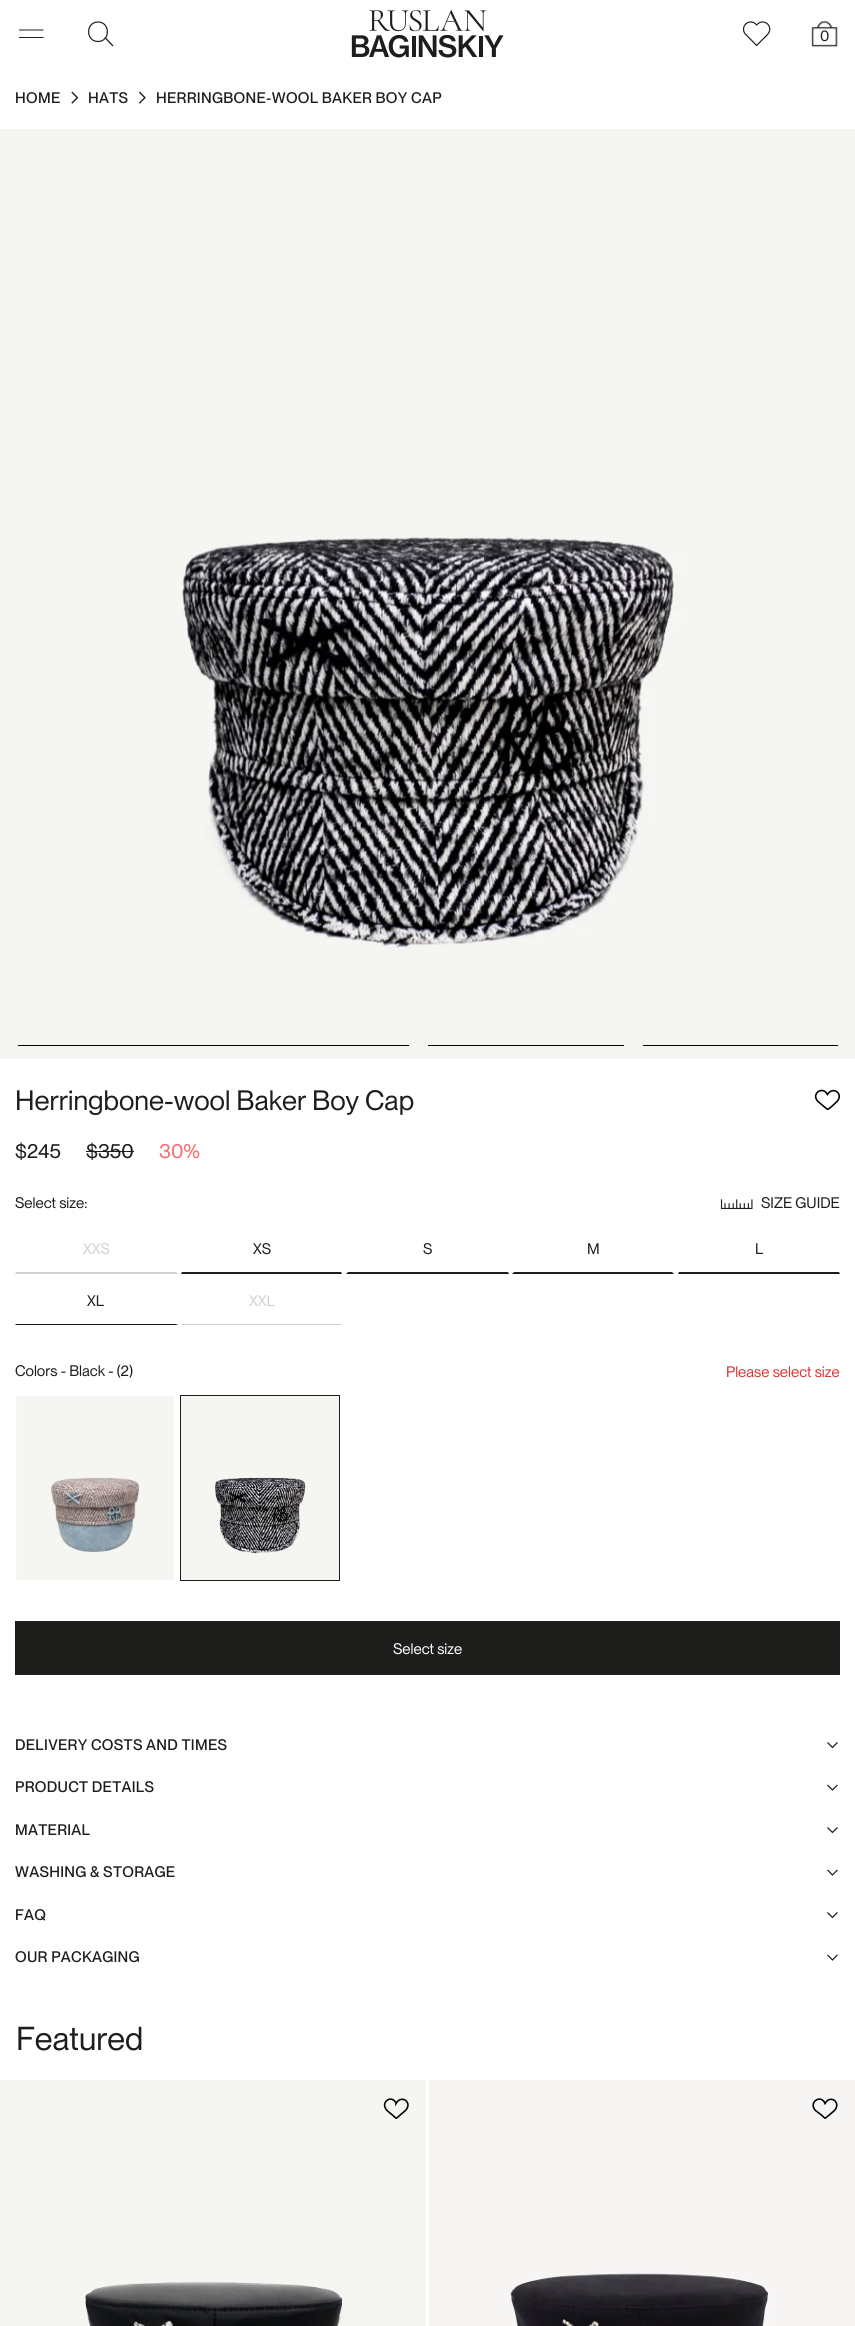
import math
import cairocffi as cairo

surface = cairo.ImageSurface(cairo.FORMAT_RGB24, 855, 2326)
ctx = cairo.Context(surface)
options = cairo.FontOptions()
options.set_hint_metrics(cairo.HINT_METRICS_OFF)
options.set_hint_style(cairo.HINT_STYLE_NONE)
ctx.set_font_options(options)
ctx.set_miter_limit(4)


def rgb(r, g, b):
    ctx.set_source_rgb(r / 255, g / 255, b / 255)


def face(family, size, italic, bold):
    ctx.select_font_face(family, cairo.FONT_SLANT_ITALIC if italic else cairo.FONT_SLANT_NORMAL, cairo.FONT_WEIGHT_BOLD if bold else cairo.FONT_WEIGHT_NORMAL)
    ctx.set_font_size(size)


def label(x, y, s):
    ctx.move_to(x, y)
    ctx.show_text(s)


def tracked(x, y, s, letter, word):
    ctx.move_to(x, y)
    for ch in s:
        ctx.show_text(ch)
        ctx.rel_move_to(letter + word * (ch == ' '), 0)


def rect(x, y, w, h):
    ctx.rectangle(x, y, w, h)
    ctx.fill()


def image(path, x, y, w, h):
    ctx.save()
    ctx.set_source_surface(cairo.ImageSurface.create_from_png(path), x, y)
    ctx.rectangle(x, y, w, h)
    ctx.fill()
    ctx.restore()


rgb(255, 255, 255)
ctx.paint()
rgb(29, 29, 27)
ctx.new_path()
ctx.move_to(43.5, 38)
ctx.line_to(19, 38)
ctx.line_to(19, 37)
ctx.line_to(43.5, 37)
ctx.close_path()
ctx.move_to(43.5, 30.5)
ctx.line_to(19, 30.5)
ctx.line_to(19, 29.5)
ctx.line_to(43.5, 29.5)
ctx.close_path()
ctx.fill()
ctx.new_path()
ctx.move_to(98, 22)
ctx.curve_to(110.5, 22, 110.5, 41.5, 98, 41.5)
ctx.curve_to(85.5, 41.5, 85.5, 22, 98, 22)
ctx.close_path()
ctx.set_line_width(1.2)
ctx.stroke()
ctx.new_path()
ctx.move_to(105, 37.5)
ctx.line_to(113, 46)
ctx.set_line_width(1.3)
ctx.stroke()
image('image0.png', 351, 10, 153, 48)
image('image1.png', 743, 21, 28, 26)
image('image2.png', 811, 21, 27, 27)
face('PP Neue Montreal', 15, 0, 0)
tracked(820, 41, '0', 0.3, 0)
face('PP Neue Montreal Medium', 15, 0, 0)
tracked(15, 103, 'HOME', 0.3, 0)
image('image3.png', 71, 91, 8, 13)
tracked(88, 103, 'HATS', 0.3, 0)
image('image4.png', 138, 91, 8, 13)
tracked(156, 103, 'HERRINGBONE-WOOL BAKER BOY CAP', 0.3, 0)
image('image5.png', 0, 129, 855, 930)
rgb(0, 0, 0)
rect(18, 1045, 391, 1)
rect(428, 1045, 196, 1)
rect(643, 1045, 195, 1)
face('PP Neue Montreal', 27.5, 0, 0)
rgb(29, 29, 27)
label(15, 1110, 'Herringbone-wool Baker Boy Cap')
ctx.new_path()
ctx.move_to(827, 1094)
ctx.line_to(827.5, 1094.5)
ctx.curve_to(833, 1085.5, 844, 1094, 837, 1101.5)
ctx.line_to(837.5, 1102)
ctx.line_to(837, 1101.5)
ctx.line_to(830.5, 1107.5)
ctx.curve_to(826.5, 1110, 828.5, 1110, 824.5, 1107)
ctx.line_to(818, 1101.5)
ctx.curve_to(811, 1094, 821.5, 1086.5, 826.5, 1093)
ctx.close_path()
rgb(0, 0, 0)
ctx.set_line_width(1.6)
ctx.stroke()
face('PP Neue Montreal', 20, 0, 0)
rgb(29, 29, 27)
label(15, 1158, '$245')
label(86, 1158, '$350')
rect(86, 1151, 48, 1)
rgb(247, 111, 111)
label(159, 1158, '30%')
face('PP Neue Montreal', 15, 0, 0)
rgb(29, 29, 27)
label(15, 1208, 'Select size:')
image('image6.png', 720, 1199, 33, 11)
label(761, 1208, 'SIZE GUIDE')
rgb(209, 209, 209)
ctx.new_path()
ctx.move_to(178, 1274)
ctx.line_to(15, 1274)
ctx.line_to(16, 1272)
ctx.line_to(176, 1272)
ctx.close_path()
ctx.fill()
label(83, 1254, 'XXS')
rgb(29, 29, 27)
ctx.new_path()
ctx.move_to(342, 1274)
ctx.line_to(181, 1274)
ctx.line_to(182, 1272)
ctx.line_to(341, 1272)
ctx.close_path()
ctx.fill()
label(253, 1254, 'XS')
ctx.new_path()
ctx.move_to(509, 1274)
ctx.line_to(346, 1274)
ctx.line_to(348, 1272)
ctx.line_to(508, 1272)
ctx.close_path()
ctx.fill()
label(423, 1254, 'S')
ctx.new_path()
ctx.move_to(674, 1274)
ctx.line_to(512, 1274)
ctx.line_to(514, 1272)
ctx.line_to(672, 1272)
ctx.close_path()
ctx.fill()
label(587, 1254, 'M')
ctx.new_path()
ctx.move_to(840, 1274)
ctx.line_to(678, 1274)
ctx.line_to(679, 1272)
ctx.line_to(839, 1272)
ctx.close_path()
ctx.fill()
label(755, 1254, 'L')
ctx.new_path()
ctx.move_to(178, 1325)
ctx.line_to(15, 1325)
ctx.line_to(16, 1324)
ctx.line_to(176, 1324)
ctx.close_path()
ctx.fill()
label(87, 1306, 'XL')
rgb(209, 209, 209)
ctx.new_path()
ctx.move_to(342, 1325)
ctx.line_to(181, 1325)
ctx.line_to(182, 1324)
ctx.line_to(341, 1324)
ctx.close_path()
ctx.fill()
label(249, 1306, 'XXL')
rgb(29, 29, 27)
label(15, 1376, 'Colors - Black - (2)')
rgb(219, 53, 53)
label(726, 1377, 'Please select size')
image('image7.png', 16, 1396, 158, 184)
ctx.rectangle(180.5, 1395.5, 159, 185)
rgb(29, 29, 27)
ctx.set_line_width(1)
ctx.stroke()
image('image8.png', 181, 1396, 158, 184)
rect(15, 1621, 825, 54)
rgb(255, 255, 255)
label(393, 1654, 'Select size')
face('PP Neue Montreal Medium', 15, 0, 0)
rgb(29, 29, 27)
tracked(15, 1750, 'DELIVERY COSTS AND TIMES', 0.3, 0)
image('image9.png', 827, 1742, 11, 7)
tracked(15, 1792, 'PRODUCT DETAILS', 0.3, 0)
image('image10.png', 827, 1784, 11, 7)
tracked(15, 1835, 'MATERIAL', 0.3, 0)
image('image9.png', 827, 1827, 11, 7)
tracked(15, 1877, 'WASHING & STORAGE', 0.3, 0)
image('image10.png', 827, 1869, 11, 7)
tracked(15, 1920, 'FAQ', 0.3, 0)
image('image9.png', 827, 1912, 11, 7)
tracked(15, 1962, 'OUR PACKAGING', 0.3, 0)
image('image10.png', 827, 1954, 11, 7)
face('PP Neue Montreal', 32.5, 0, 0)
label(16, 2050, 'Featured')
image('image11.png', 0, 2080, 426, 246)
ctx.new_path()
ctx.move_to(396, 2102.5)
ctx.line_to(396, 2103.5)
ctx.curve_to(401.5, 2094, 413, 2102.5, 405.5, 2110.5)
ctx.line_to(406, 2111)
ctx.line_to(405.5, 2110.5)
ctx.line_to(399, 2116)
ctx.curve_to(395.5, 2119, 397, 2119, 393, 2115.5)
ctx.line_to(387, 2110.5)
ctx.curve_to(380, 2103, 390, 2095, 395, 2101.5)
ctx.close_path()
rgb(0, 0, 0)
ctx.set_line_width(1.6)
ctx.stroke()
image('image12.png', 429, 2080, 426, 246)
ctx.new_path()
ctx.move_to(824.5, 2102.5)
ctx.line_to(825, 2103.5)
ctx.curve_to(830.5, 2094, 841.5, 2102.5, 834.5, 2110.5)
ctx.line_to(835, 2111)
ctx.line_to(834.5, 2110.5)
ctx.line_to(828, 2116)
ctx.curve_to(824, 2119, 826, 2119, 822, 2115.5)
ctx.line_to(815.5, 2110.5)
ctx.curve_to(808.5, 2103, 819, 2095, 824, 2101.5)
ctx.close_path()
ctx.stroke()
surface.write_to_png('render.png')
